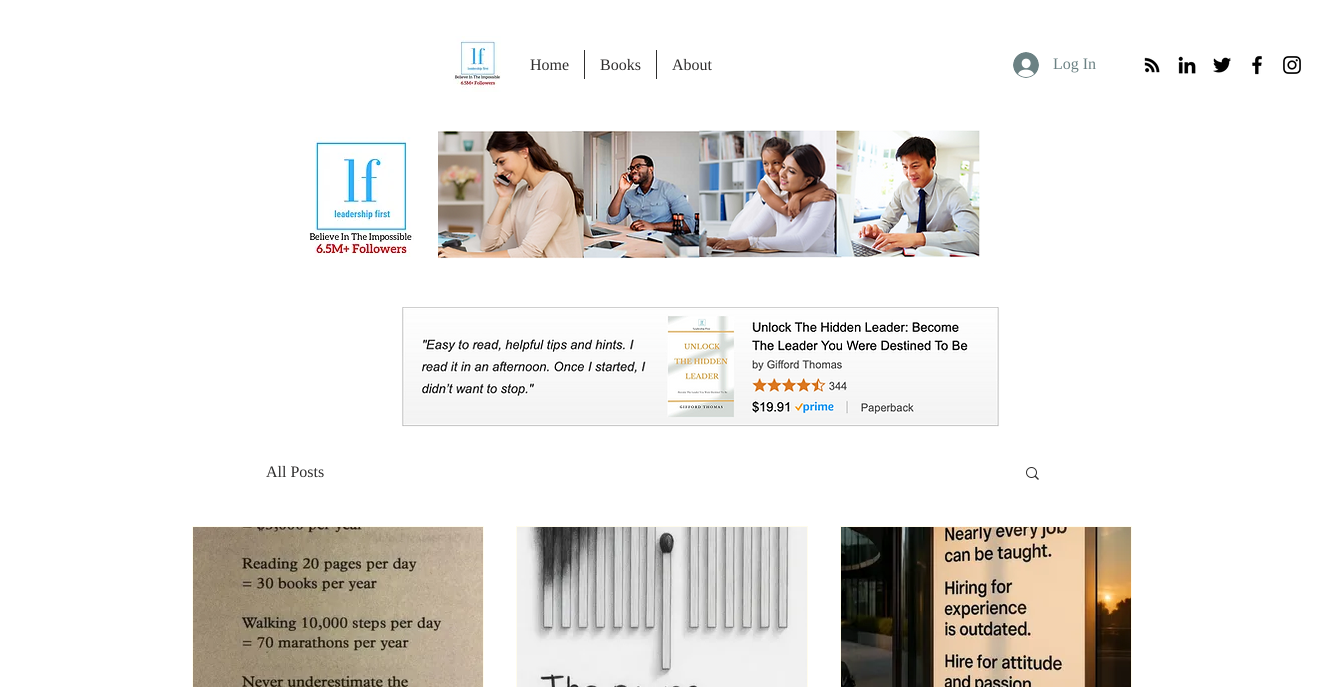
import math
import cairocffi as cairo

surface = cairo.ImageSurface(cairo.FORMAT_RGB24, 1324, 687)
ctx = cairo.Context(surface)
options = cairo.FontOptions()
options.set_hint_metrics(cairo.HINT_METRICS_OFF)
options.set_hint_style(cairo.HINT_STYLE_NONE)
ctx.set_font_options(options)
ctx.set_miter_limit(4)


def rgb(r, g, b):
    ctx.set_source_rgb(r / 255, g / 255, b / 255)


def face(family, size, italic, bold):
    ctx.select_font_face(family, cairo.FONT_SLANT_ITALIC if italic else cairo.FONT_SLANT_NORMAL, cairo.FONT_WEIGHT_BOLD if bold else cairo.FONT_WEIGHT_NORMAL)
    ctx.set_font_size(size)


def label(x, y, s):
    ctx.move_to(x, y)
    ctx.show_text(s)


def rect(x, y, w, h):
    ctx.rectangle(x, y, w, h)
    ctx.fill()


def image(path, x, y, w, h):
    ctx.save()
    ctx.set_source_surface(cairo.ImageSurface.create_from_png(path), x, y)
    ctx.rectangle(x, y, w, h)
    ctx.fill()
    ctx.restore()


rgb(255, 255, 255)
ctx.paint()
image('image0.png', 453, 36, 48, 56)
face('Liberation Serif', 16, 0, 0)
rgb(47, 46, 46)
label(530, 70, 'Home')
rect(584, 50, 1, 29)
label(600, 70, 'Books')
rect(656, 50, 1, 29)
label(672, 70, 'About')
image('image1.png', 1013, 52, 26, 26)
rgb(107, 129, 131)
label(1053, 69, 'Log In')
image('image2.png', 1144, 57, 16, 16)
image('image3.png', 1178, 56, 18, 18)
image('image4.png', 1213, 57, 18, 16)
image('image5.png', 1252, 55, 10, 20)
image('image6.png', 1283, 56, 18, 18)
image('image7.png', 309, 137, 105, 120)
image('image8.png', 438, 130, 542, 129)
image('image9.png', 402, 307, 597, 120)
rgb(47, 46, 46)
label(266, 477, 'All Posts')
image('image10.png', 1026, 467, 13, 13)
ctx.rectangle(192.5, 526.5, 291, 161)
rgb(255, 252, 236)
ctx.set_line_width(1)
ctx.stroke()
image('image11.png', 193, 527, 290, 160)
ctx.rectangle(516.5, 526.5, 291, 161)
ctx.stroke()
image('image12.png', 517, 527, 290, 160)
ctx.rectangle(840.5, 526.5, 291, 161)
ctx.stroke()
image('image13.png', 841, 527, 290, 160)
surface.write_to_png('render.png')
